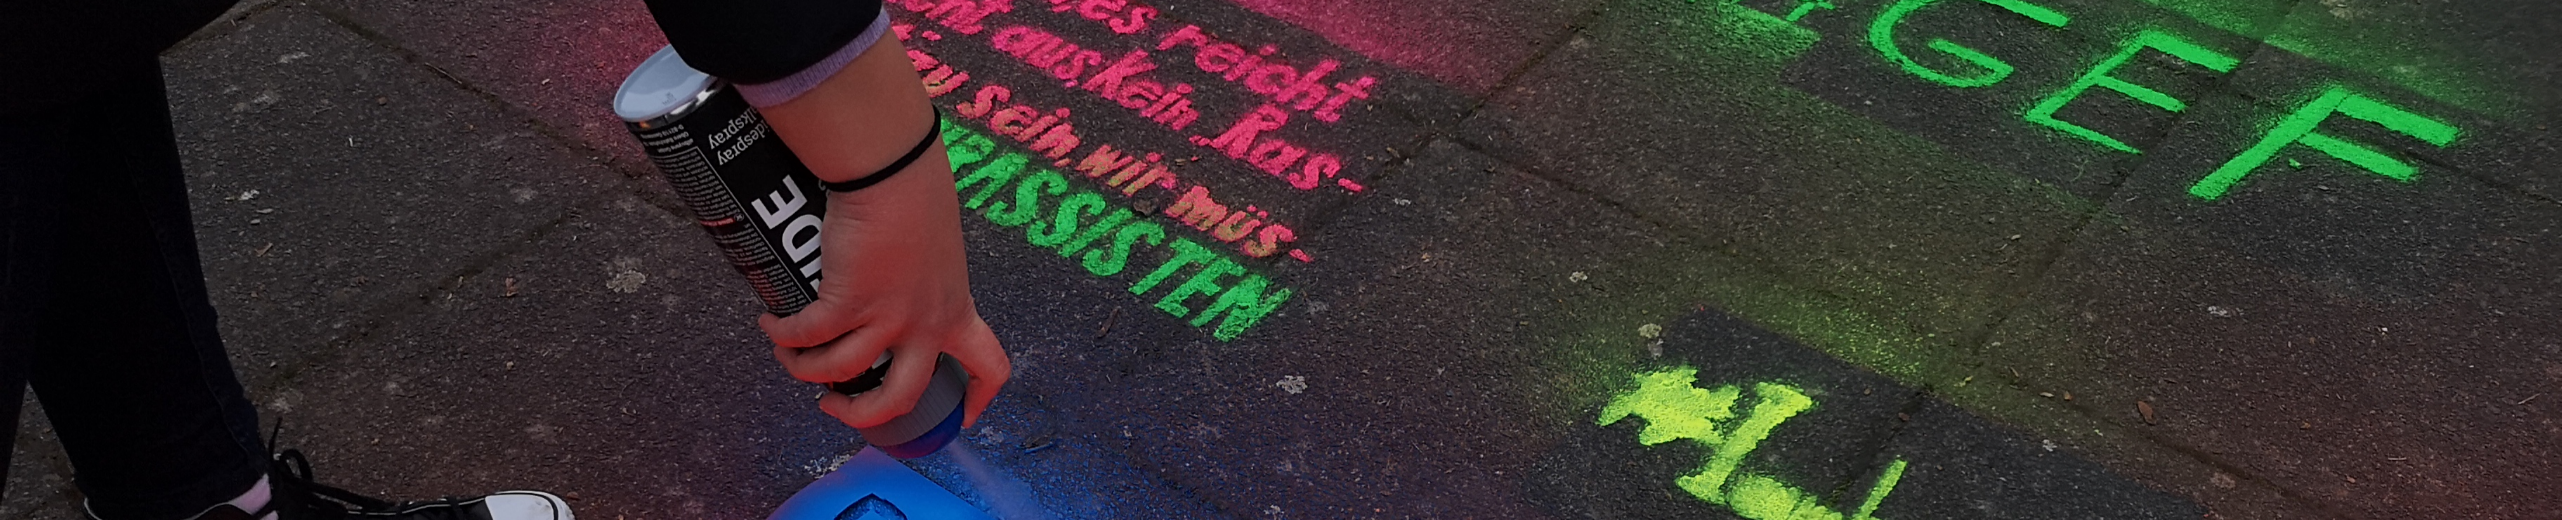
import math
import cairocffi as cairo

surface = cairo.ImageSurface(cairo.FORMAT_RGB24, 2562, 520)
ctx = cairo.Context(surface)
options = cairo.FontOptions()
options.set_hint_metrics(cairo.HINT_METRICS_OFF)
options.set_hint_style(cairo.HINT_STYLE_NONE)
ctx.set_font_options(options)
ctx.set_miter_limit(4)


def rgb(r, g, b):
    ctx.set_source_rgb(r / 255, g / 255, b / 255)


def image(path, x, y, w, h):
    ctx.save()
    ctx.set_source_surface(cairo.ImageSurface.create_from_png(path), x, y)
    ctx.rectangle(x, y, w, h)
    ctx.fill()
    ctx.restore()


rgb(255, 255, 255)
ctx.paint()
image('image0.png', 0, 0, 2562, 520)
surface.write_to_png('render.png')
